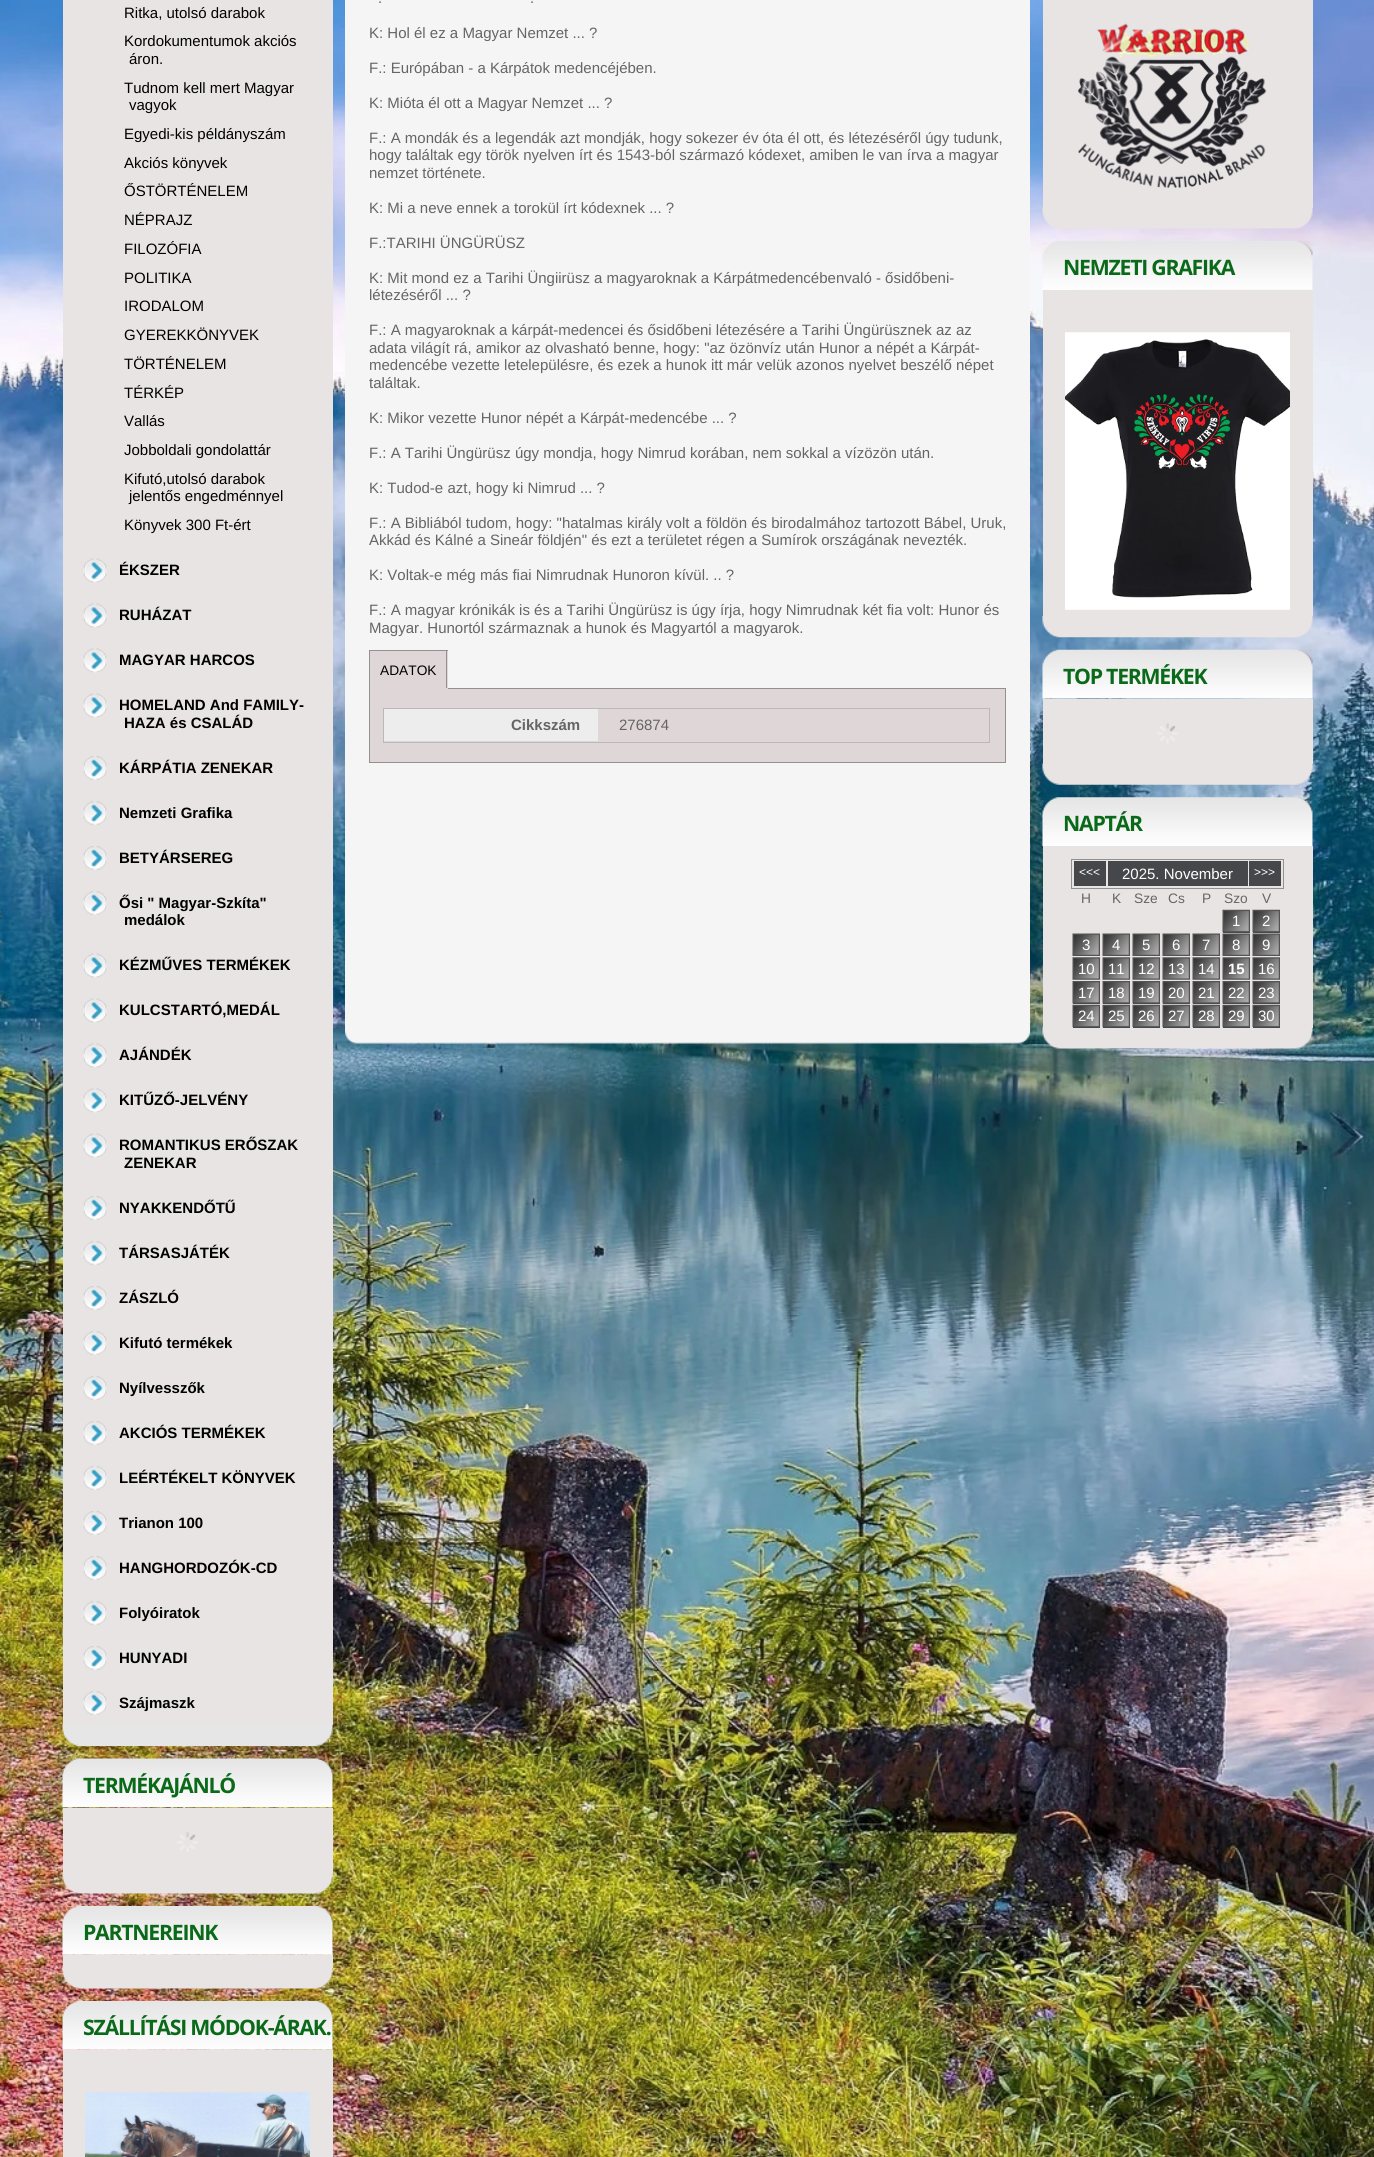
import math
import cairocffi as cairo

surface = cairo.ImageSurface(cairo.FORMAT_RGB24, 1374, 2157)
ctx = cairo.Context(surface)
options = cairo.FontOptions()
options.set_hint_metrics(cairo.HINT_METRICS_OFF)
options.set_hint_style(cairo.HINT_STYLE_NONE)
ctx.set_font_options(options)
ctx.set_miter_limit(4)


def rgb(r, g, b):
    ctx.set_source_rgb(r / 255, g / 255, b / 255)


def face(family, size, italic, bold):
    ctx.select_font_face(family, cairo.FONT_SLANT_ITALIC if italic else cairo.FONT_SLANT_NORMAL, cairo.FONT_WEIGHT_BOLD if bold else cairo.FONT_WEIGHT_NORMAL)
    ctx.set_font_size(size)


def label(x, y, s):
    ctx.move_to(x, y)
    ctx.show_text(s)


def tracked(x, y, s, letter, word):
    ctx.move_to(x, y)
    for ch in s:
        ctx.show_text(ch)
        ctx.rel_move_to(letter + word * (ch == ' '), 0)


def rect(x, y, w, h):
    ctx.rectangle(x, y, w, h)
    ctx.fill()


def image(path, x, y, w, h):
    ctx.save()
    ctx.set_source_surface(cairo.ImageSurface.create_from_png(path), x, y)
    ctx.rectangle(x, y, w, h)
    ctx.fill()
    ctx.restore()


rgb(255, 255, 255)
ctx.paint()
image('image0.png', 0, 1349, 1374, 808)
image('image1.png', 0, 0, 1374, 1349)
image('image6.png', 62, 1724, 271, 22)
rgb(233, 228, 228)
rect(63, 0, 270, 1725)
face('Liberation Sans', 15, 0, 0)
rgb(0, 0, 0)
label(124, 18, 'Ritka, utolsó darabok')
label(124, 46, 'Kordokumentumok akciós')
label(129, 64, 'áron.')
label(124, 93, 'Tudnom kell mert Magyar')
label(129, 110, 'vagyok')
label(124, 139, 'Egyedi-kis példányszám')
label(124, 168, 'Akciós könyvek')
label(124, 196, 'ŐSTÖRTÉNELEM')
label(124, 225, 'NÉPRAJZ')
label(124, 254, 'FILOZÓFIA')
label(124, 283, 'POLITIKA')
label(124, 311, 'IRODALOM')
label(124, 340, 'GYEREKKÖNYVEK')
label(124, 369, 'TÖRTÉNELEM')
label(124, 398, 'TÉRKÉP')
label(124, 426, 'Vallás')
label(124, 455, 'Jobboldali gondolattár')
label(124, 484, 'Kifutó,utolsó darabok')
label(129, 501, 'jelentős engedménnyel')
label(124, 530, 'Könyvek 300 Ft-ért')
image('image2.png', 83, 558, 24, 25)
face('Liberation Sans', 15, 0, 1)
label(119, 575, 'ÉKSZER')
image('image2.png', 83, 603, 24, 25)
label(119, 620, 'RUHÁZAT')
image('image2.png', 83, 648, 24, 25)
label(119, 665, 'MAGYAR HARCOS')
image('image2.png', 83, 693, 24, 25)
label(119, 710, 'HOMELAND And FAMILY-')
label(124, 728, 'HAZA és CSALÁD')
image('image3.png', 83, 756, 24, 24)
label(119, 773, 'KÁRPÁTIA ZENEKAR')
image('image3.png', 83, 801, 24, 24)
label(119, 818, 'Nemzeti Grafika')
image('image3.png', 83, 846, 24, 24)
label(119, 863, 'BETYÁRSEREG')
image('image3.png', 83, 891, 24, 24)
label(119, 908, 'Ősi " Magyar-Szkíta"')
label(124, 925, 'medálok')
image('image2.png', 83, 953, 24, 25)
label(119, 970, 'KÉZMŰVES TERMÉKEK')
image('image2.png', 83, 998, 24, 25)
label(119, 1015, 'KULCSTARTÓ,MEDÁL')
image('image4.png', 83, 1043, 24, 25)
label(119, 1060, 'AJÁNDÉK')
image('image2.png', 83, 1088, 24, 25)
label(119, 1105, 'KITŰZŐ-JELVÉNY')
image('image2.png', 83, 1133, 24, 25)
label(119, 1150, 'ROMANTIKUS ERŐSZAK')
label(124, 1168, 'ZENEKAR')
image('image3.png', 83, 1196, 24, 24)
label(119, 1213, 'NYAKKENDŐTŰ')
image('image5.png', 83, 1241, 24, 24)
label(119, 1258, 'TÁRSASJÁTÉK')
image('image3.png', 83, 1286, 24, 24)
label(119, 1303, 'ZÁSZLÓ')
image('image3.png', 83, 1331, 24, 24)
label(119, 1348, 'Kifutó termékek')
image('image3.png', 83, 1376, 24, 24)
label(119, 1393, 'Nyílvesszők')
image('image3.png', 83, 1421, 24, 24)
label(119, 1438, 'AKCIÓS TERMÉKEK')
image('image3.png', 83, 1466, 24, 24)
label(119, 1483, 'LEÉRTÉKELT KÖNYVEK')
image('image3.png', 83, 1511, 24, 24)
label(119, 1528, 'Trianon 100')
image('image3.png', 83, 1556, 24, 24)
label(119, 1573, 'HANGHORDOZÓK-CD')
image('image3.png', 83, 1601, 24, 24)
label(119, 1618, 'Folyóiratok')
image('image3.png', 83, 1646, 24, 24)
label(119, 1663, 'HUNYADI')
image('image3.png', 83, 1691, 24, 24)
label(119, 1708, 'Szájmaszk')
image('image7.png', 62, 1758, 271, 50)
face('Open Sans', 21.25, 0, 1)
rgb(11, 105, 26)
tracked(83, 1793, 'TERMÉKAJÁNLÓ', -1.25, 0)
image('image9.png', 62, 1872, 271, 22)
rgb(233, 228, 228)
rect(63, 1808, 270, 65)
image('image8.png', 177, 1832, 21, 20)
image('image10.png', 62, 1906, 271, 49)
rgb(11, 105, 26)
tracked(83, 1940, 'PARTNEREINK', -1.25, 0)
image('image11.png', 62, 1967, 271, 22)
rgb(233, 228, 228)
rect(63, 1955, 270, 13)
image('image12.png', 62, 2001, 271, 49)
rgb(11, 105, 26)
tracked(83, 2035, 'SZÁLLÍTÁSI MÓDOK-ÁRAK.', -1.25, 0)
rgb(233, 228, 228)
rect(63, 2050, 270, 107)
image('image13.png', 85, 2092, 225, 65)
rgb(246, 245, 245)
rect(345, 0, 685, 1025)
face('Liberation Sans', 15, 0, 0)
rgb(102, 100, 100)
label(378, 3, '.')
label(530, 3, '.')
label(369, 38, 'K: Hol él ez a Magyar Nemzet ... ?')
label(369, 73, 'F.: Európában - a Kárpátok medencéjében.')
label(369, 108, 'K: Mióta él ott a Magyar Nemzet ... ?')
label(369, 143, 'F.: A mondák és a legendák azt mondják, hogy sokezer év óta él ott, és létezéséről úgy tudunk,')
label(369, 160, 'hogy találtak egy török nyelven írt és 1543-ból származó kódexet, amiben le van írva a magyar')
label(369, 178, 'nemzet története.')
label(369, 213, 'K: Mi a neve ennek a torokül írt kódexnek ... ?')
label(369, 248, 'F.:TARIHI ÜNGÜRÜSZ')
label(369, 283, 'K: Mit mond ez a Tarihi Üngiirüsz a magyaroknak a Kárpátmedencébenvaló - ősidőbeni-')
label(369, 300, 'létezéséről ... ?')
label(369, 335, 'F.: A magyaroknak a kárpát-medencei és ősidőbeni létezésére a Tarihi Üngürüsznek az az')
label(369, 353, 'adata világít rá, amikor az olvasható benne, hogy: "az özönvíz után Hunor a népét a Kárpát-')
label(369, 370, 'medencébe vezette letelepülésre, és ezek a hunok itt már velük azonos nyelvet beszélő népet')
label(369, 388, 'találtak.')
label(369, 423, 'K: Mikor vezette Hunor népét a Kárpát-medencébe ... ?')
label(369, 458, 'F.: A Tarihi Üngürüsz úgy mondja, hogy Nimrud korában, nem sokkal a vízözön után.')
label(369, 493, 'K: Tudod-e azt, hogy ki Nimrud ... ?')
label(369, 528, 'F.: A Bibliából tudom, hogy: "hatalmas király volt a földön és birodalmához tartozott Bábel, Uruk,')
label(369, 545, 'Akkád és Kálné a Sineár földjén" és ezt a területet régen a Sumírok országának nevezték.')
label(369, 580, 'K: Voltak-e még más fiai Nimrudnak Hunoron kívül. .. ?')
label(369, 615, 'F.: A magyar krónikák is és a Tarihi Üngürüsz is úgy írja, hogy Nimrudnak két fia volt: Hunor és')
label(369, 633, 'Magyar. Hunortól származnak a hunok és Magyartól a magyarok.')
rgb(223, 215, 215)
rect(370, 651, 78, 37)
rgb(145, 145, 145)
rect(369, 650, 79, 1)
rgb(223, 215, 215)
ctx.rectangle(369.5, 688.5, 636, 74)
ctx.fill_preserve()
rgb(145, 145, 145)
ctx.set_line_width(1)
ctx.stroke()
rect(446, 650, 1, 39)
rgb(223, 215, 215)
rect(369, 688, 79, 1)
rgb(145, 145, 145)
rect(369, 650, 1, 39)
face('Liberation Sans', 13.75, 0, 0)
rgb(0, 0, 0)
label(380, 675, 'ADATOK')
ctx.rectangle(383.5, 708.5, 606, 34)
rgb(185, 185, 185)
ctx.stroke()
rgb(237, 237, 237)
rect(384, 709, 214, 32)
face('Liberation Sans', 15, 0, 1)
rgb(102, 100, 100)
label(511, 730, 'Cikkszám')
face('Liberation Sans', 15, 0, 0)
label(619, 730, '276874')
image('image14.png', 345, 1025, 685, 19)
image('image16.png', 1042, 207, 271, 22)
rgb(233, 228, 228)
rect(1043, 0, 270, 208)
image('image15.png', 1078, 23, 189, 165)
image('image17.png', 1042, 241, 271, 49)
face('Open Sans', 21.25, 0, 1)
rgb(11, 105, 26)
tracked(1063, 275, 'NEMZETI GRAFIKA', -1.25, 0)
rgb(233, 228, 228)
rect(1043, 290, 270, 326)
image('image18.png', 1065, 332, 225, 278)
image('image19.png', 1042, 616, 271, 22)
image('image20.png', 1042, 649, 271, 50)
rgb(11, 105, 26)
tracked(1063, 684, 'TOP TERMÉKEK', -1.25, 0)
image('image22.png', 1042, 763, 271, 22)
rgb(233, 228, 228)
rect(1043, 699, 270, 65)
image('image21.png', 1157, 723, 21, 21)
image('image23.png', 1042, 797, 271, 49)
rgb(11, 105, 26)
tracked(1063, 831, 'NAPTÁR', -1.25, 0)
image('image38.png', 1042, 1027, 271, 22)
rgb(233, 228, 228)
rect(1043, 846, 270, 182)
ctx.rectangle(1071.5, 859.5, 212, 29)
rgb(145, 145, 145)
ctx.stroke()
rgb(70, 71, 75)
rect(1074, 861, 32, 25)
face('Liberation Sans', 12, 0, 0)
rgb(255, 255, 255)
label(1079, 876, '<<<')
rgb(70, 71, 75)
rect(1108, 861, 140, 25)
face('Liberation Sans', 15, 0, 0)
rgb(255, 255, 255)
label(1122, 879, '2025. November')
rgb(70, 71, 75)
rect(1249, 861, 32, 25)
face('Liberation Sans', 12, 0, 0)
rgb(255, 255, 255)
label(1254, 876, '>>>')
face('Liberation Sans', 13.75, 0, 0)
rgb(102, 100, 100)
label(1081, 903, 'H')
label(1112, 903, 'K')
label(1134, 903, 'Sze')
label(1168, 903, 'Cs')
label(1202, 903, 'P')
label(1224, 903, 'Szo')
label(1262, 903, 'V')
rgb(70, 71, 75)
rect(1223, 932, 27, 1)
image('image24.png', 1222, 909, 28, 24)
face('Liberation Sans', 15, 0, 0)
rgb(255, 255, 255)
label(1232, 926, '1')
rgb(70, 71, 75)
rect(1253, 932, 27, 1)
image('image25.png', 1252, 909, 28, 24)
rgb(255, 255, 255)
label(1262, 926, '2')
image('image26.png', 1072, 933, 28, 23)
label(1082, 950, '3')
image('image26.png', 1102, 933, 28, 23)
label(1112, 950, '4')
image('image26.png', 1132, 933, 28, 23)
label(1142, 950, '5')
image('image26.png', 1162, 933, 28, 23)
label(1172, 950, '6')
image('image27.png', 1192, 933, 28, 23)
label(1202, 950, '7')
image('image27.png', 1222, 933, 28, 23)
label(1232, 950, '8')
image('image28.png', 1252, 933, 28, 23)
label(1262, 950, '9')
image('image29.png', 1072, 957, 28, 23)
label(1078, 974, '10')
image('image29.png', 1102, 957, 28, 23)
label(1108, 974, '11')
image('image29.png', 1132, 957, 28, 23)
label(1138, 974, '12')
image('image29.png', 1162, 957, 28, 23)
label(1168, 974, '13')
image('image30.png', 1192, 957, 28, 23)
label(1198, 974, '14')
image('image30.png', 1222, 957, 28, 23)
face('Liberation Sans', 15, 0, 1)
label(1228, 974, '15')
image('image31.png', 1252, 957, 28, 23)
face('Liberation Sans', 15, 0, 0)
label(1258, 974, '16')
rgb(70, 71, 75)
rect(1073, 1003, 27, 1)
image('image32.png', 1072, 981, 28, 23)
rgb(255, 255, 255)
label(1078, 998, '17')
rgb(70, 71, 75)
rect(1103, 1003, 27, 1)
image('image32.png', 1102, 981, 28, 23)
rgb(255, 255, 255)
label(1108, 998, '18')
rgb(70, 71, 75)
rect(1133, 1003, 27, 1)
image('image32.png', 1132, 981, 28, 23)
rgb(255, 255, 255)
label(1138, 998, '19')
rgb(70, 71, 75)
rect(1163, 1003, 27, 1)
image('image32.png', 1162, 981, 28, 23)
rgb(255, 255, 255)
label(1168, 998, '20')
rgb(70, 71, 75)
rect(1193, 1003, 27, 1)
image('image33.png', 1192, 981, 28, 23)
rgb(255, 255, 255)
label(1198, 998, '21')
rgb(70, 71, 75)
rect(1223, 1003, 27, 1)
image('image33.png', 1222, 981, 28, 23)
rgb(255, 255, 255)
label(1228, 998, '22')
rgb(70, 71, 75)
rect(1253, 1003, 27, 1)
image('image34.png', 1252, 981, 28, 23)
rgb(255, 255, 255)
label(1258, 998, '23')
rgb(70, 71, 75)
rect(1073, 1027, 27, 1)
image('image35.png', 1072, 1004, 28, 24)
rgb(255, 255, 255)
label(1078, 1021, '24')
rgb(70, 71, 75)
rect(1103, 1027, 27, 1)
image('image35.png', 1102, 1004, 28, 24)
rgb(255, 255, 255)
label(1108, 1021, '25')
rgb(70, 71, 75)
rect(1133, 1027, 27, 1)
image('image35.png', 1132, 1004, 28, 24)
rgb(255, 255, 255)
label(1138, 1021, '26')
rgb(70, 71, 75)
rect(1163, 1027, 27, 1)
image('image35.png', 1162, 1004, 28, 24)
rgb(255, 255, 255)
label(1168, 1021, '27')
rgb(70, 71, 75)
rect(1193, 1027, 27, 1)
image('image36.png', 1192, 1004, 28, 24)
rgb(255, 255, 255)
label(1198, 1021, '28')
rgb(70, 71, 75)
rect(1223, 1027, 27, 1)
image('image36.png', 1222, 1004, 28, 24)
rgb(255, 255, 255)
label(1228, 1021, '29')
rgb(70, 71, 75)
rect(1253, 1027, 27, 1)
image('image37.png', 1252, 1004, 28, 24)
rgb(255, 255, 255)
label(1258, 1021, '30')
surface.write_to_png('render.png')
